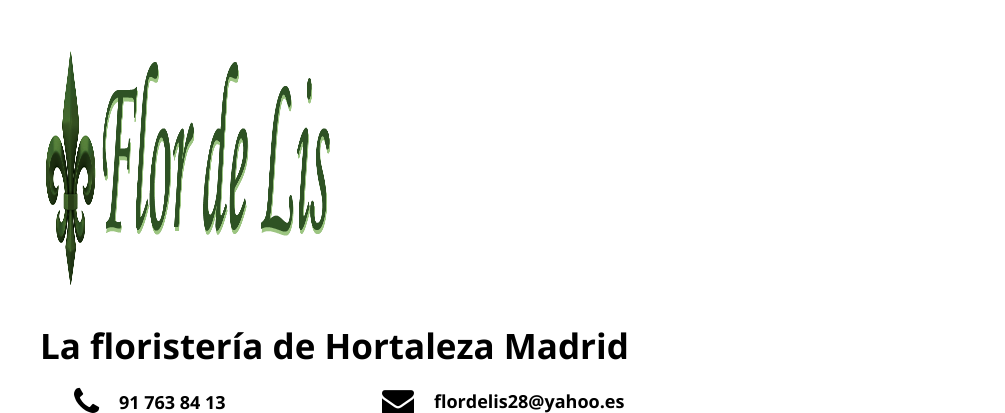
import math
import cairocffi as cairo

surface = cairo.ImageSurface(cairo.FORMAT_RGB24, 1005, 413)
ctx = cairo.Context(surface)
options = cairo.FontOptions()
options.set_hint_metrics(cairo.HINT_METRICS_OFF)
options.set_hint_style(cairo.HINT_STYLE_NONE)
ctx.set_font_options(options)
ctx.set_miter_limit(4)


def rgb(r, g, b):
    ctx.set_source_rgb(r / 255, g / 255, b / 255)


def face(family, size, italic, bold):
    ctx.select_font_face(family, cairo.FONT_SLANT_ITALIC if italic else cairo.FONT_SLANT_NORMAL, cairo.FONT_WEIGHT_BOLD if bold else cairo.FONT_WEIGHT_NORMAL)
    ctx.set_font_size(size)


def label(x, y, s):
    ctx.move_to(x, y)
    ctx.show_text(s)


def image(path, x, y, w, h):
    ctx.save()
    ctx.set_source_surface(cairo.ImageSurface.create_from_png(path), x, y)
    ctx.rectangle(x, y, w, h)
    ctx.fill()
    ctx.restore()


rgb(255, 255, 255)
ctx.paint()
image('image0.png', 46, 51, 284, 234)
face('Open Sans', 35, 0, 1)
rgb(0, 0, 0)
label(40, 359, 'La floristería de Hortaleza Madrid')
image('image1.png', 74, 387, 26, 26)
face('Open Sans', 18, 0, 1)
label(119, 409, '91 763 84 13')
image('image2.png', 382, 390, 32, 23)
label(434, 408, 'flordelis28@yahoo.es')
surface.write_to_png('render.png')
